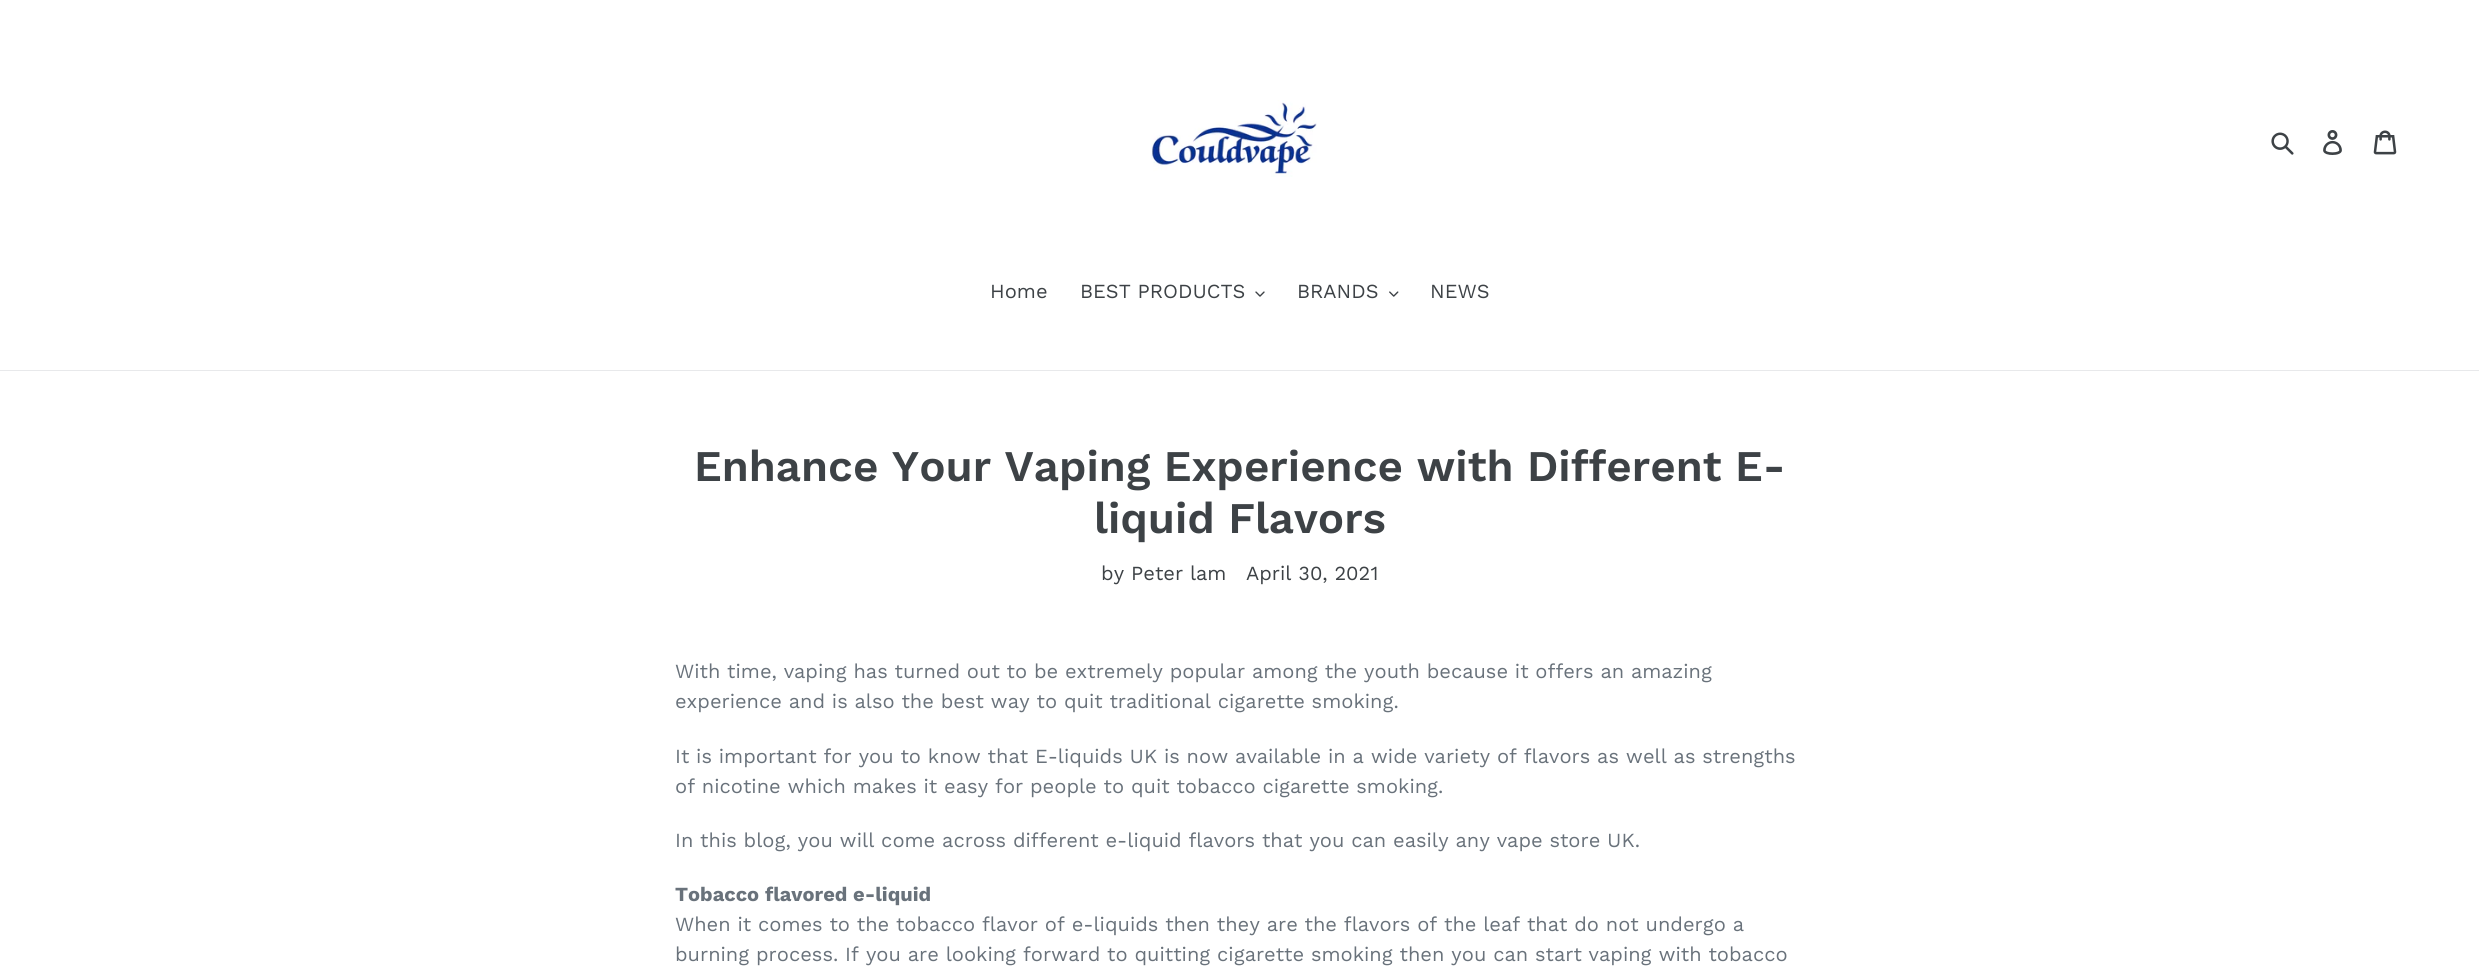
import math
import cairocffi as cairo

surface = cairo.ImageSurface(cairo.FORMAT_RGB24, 2479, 979)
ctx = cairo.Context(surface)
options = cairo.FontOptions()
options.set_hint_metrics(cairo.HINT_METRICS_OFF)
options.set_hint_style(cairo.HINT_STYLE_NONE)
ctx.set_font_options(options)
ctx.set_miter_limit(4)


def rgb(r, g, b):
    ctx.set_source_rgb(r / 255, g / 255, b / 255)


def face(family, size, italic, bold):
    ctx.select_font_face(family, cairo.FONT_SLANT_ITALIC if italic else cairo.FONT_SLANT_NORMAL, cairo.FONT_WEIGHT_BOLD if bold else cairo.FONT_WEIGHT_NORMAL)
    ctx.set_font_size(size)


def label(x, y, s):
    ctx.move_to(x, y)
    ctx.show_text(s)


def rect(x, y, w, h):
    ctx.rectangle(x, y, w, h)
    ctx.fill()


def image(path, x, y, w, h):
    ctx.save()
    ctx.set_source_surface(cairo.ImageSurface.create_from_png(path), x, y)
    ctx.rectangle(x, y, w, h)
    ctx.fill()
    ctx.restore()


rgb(255, 255, 255)
ctx.paint()
image('image0.png', 1151, 100, 166, 77)
image('image1.png', 2271, 132, 23, 23)
image('image2.png', 2323, 130, 19, 25)
image('image3.png', 2373, 130, 24, 25)
rgb(232, 233, 235)
rect(0, 370, 2479, 1)
face('Work Sans', 20, 0, 0)
rgb(61, 66, 70)
label(990, 298, 'Home')
label(1080, 298, 'BEST PRODUCTS')
image('image4.png', 1255, 291, 10, 6)
label(1297, 298, 'BRANDS')
image('image5.png', 1389, 291, 10, 6)
label(1430, 298, 'NEWS')
face('Work Sans SemiBold', 43.75, 0, 0)
label(694, 481, 'Enhance Your Vaping Experience with Different E-')
label(1094, 533, 'liquid Flavors')
face('Work Sans', 20, 0, 0)
label(1101, 580, 'by Peter lam')
label(1246, 580, 'April 30, 2021')
rgb(105, 114, 123)
label(675, 678, 'With time, vaping has turned out to be extremely popular among the youth because it offers an amazing')
label(675, 708, 'experience and is also the best way to quit traditional cigarette smoking.')
label(675, 763, 'It is important for you to know that E-liquids UK is now available in a wide variety of flavors as well as strengths')
label(675, 793, 'of nicotine which makes it easy for people to quit tobacco cigarette smoking.')
label(675, 847, 'In this blog, you will come across different e-liquid flavors that you can easily any vape store UK.')
face('Work Sans', 20, 0, 1)
label(675, 901, 'Tobacco flavored e-liquid')
face('Work Sans', 20, 0, 0)
label(675, 931, 'When it comes to the tobacco flavor of e-liquids then they are the flavors of the leaf that do not undergo a')
label(675, 961, 'burning process. If you are looking forward to quitting cigarette smoking then you can start vaping with tobacco')
surface.write_to_png('render.png')
